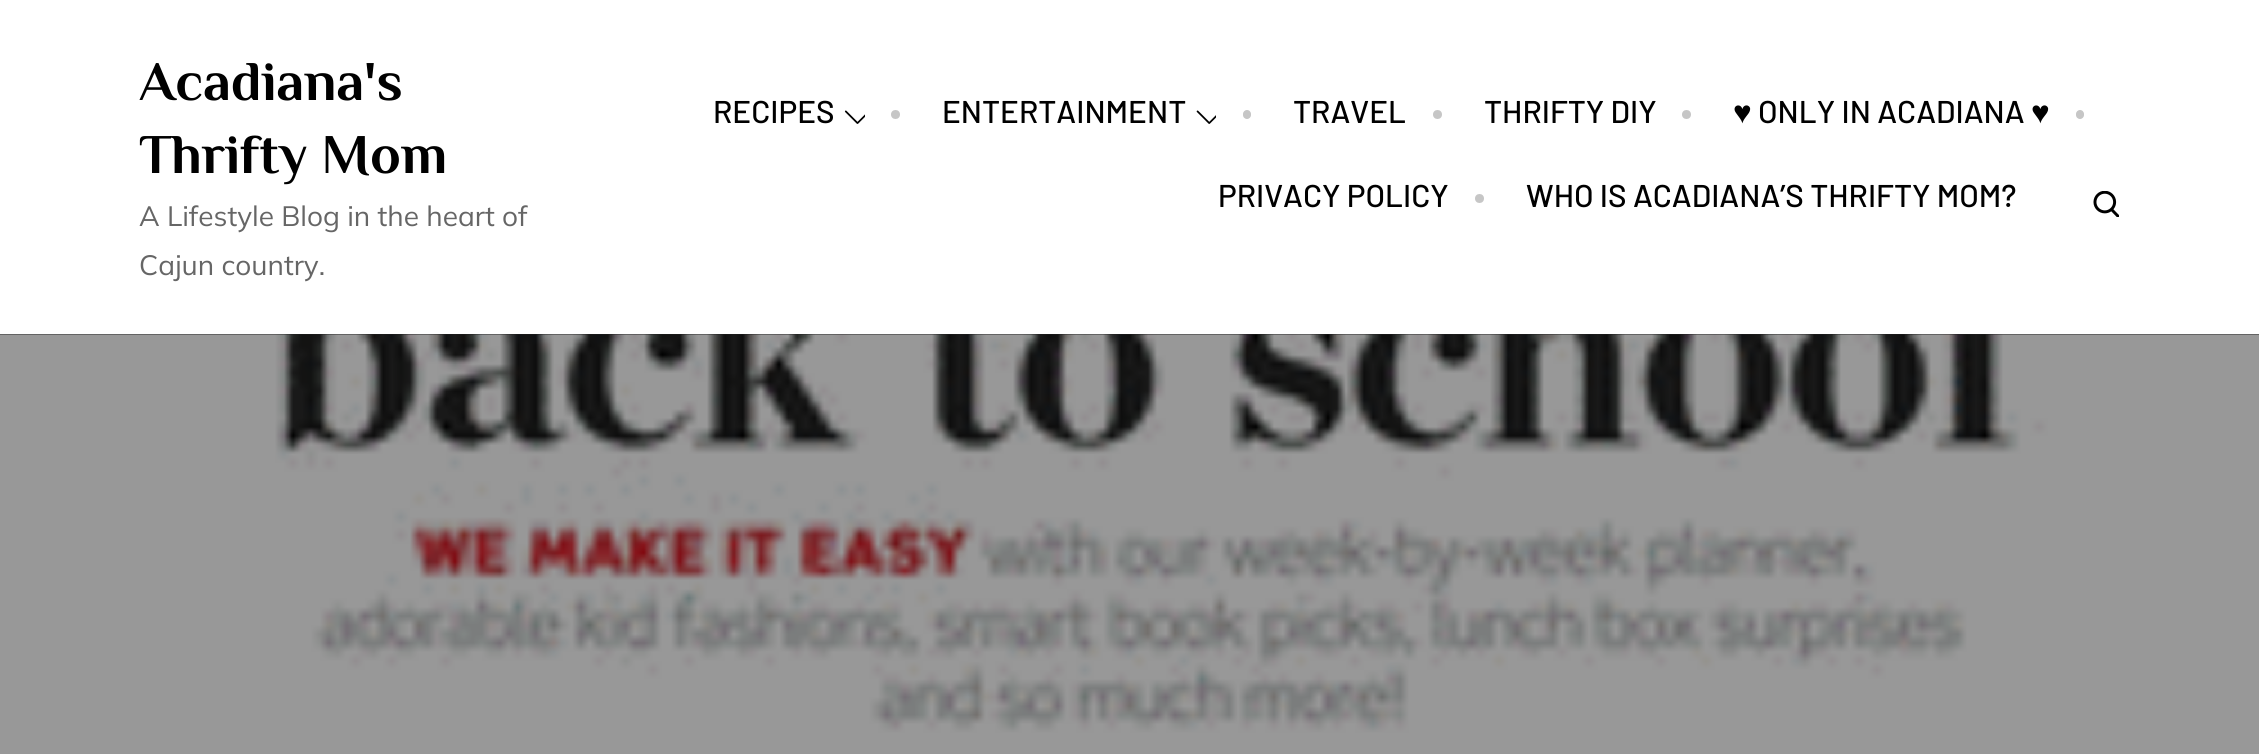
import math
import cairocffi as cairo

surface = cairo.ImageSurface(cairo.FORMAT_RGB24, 2259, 754)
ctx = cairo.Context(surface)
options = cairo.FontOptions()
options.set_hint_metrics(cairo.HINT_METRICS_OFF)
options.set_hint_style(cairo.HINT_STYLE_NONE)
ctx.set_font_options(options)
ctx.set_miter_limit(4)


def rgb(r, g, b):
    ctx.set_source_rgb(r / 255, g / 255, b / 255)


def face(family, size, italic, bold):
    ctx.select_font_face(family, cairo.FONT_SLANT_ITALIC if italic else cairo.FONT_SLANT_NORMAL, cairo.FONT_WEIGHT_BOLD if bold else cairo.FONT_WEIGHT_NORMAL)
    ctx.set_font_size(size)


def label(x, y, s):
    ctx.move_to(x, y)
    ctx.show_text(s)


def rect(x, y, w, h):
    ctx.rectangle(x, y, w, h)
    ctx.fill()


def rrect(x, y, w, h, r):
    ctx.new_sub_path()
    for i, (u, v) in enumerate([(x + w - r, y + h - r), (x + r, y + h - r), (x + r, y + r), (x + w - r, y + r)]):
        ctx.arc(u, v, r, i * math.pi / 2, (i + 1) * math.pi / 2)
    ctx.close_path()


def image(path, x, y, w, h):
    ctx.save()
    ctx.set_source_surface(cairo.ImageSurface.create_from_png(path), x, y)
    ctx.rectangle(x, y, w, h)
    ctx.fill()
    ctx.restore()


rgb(255, 255, 255)
ctx.paint()
face('Philosopher', 56, 0, 1)
rgb(0, 0, 0)
label(139, 100, 'Acadiana\'s')
label(139, 173, 'Thrifty Mom')
face('Mulish', 28, 0, 0)
rgb(102, 102, 102)
label(139, 226, 'A Lifestyle Blog in the heart of')
label(139, 275, 'Cajun country.')
face('Barlow Medium', 31.5, 0, 0)
rgb(0, 0, 0)
label(713, 123, 'RECIPES')
image('image0.png', 844, 110, 21, 14)
rgb(198, 198, 198)
ctx.arc(895.5, 114.5, 4.5, 0, 2 * math.pi)
ctx.fill()
rgb(0, 0, 0)
label(942, 123, 'ENTERTAINMENT')
image('image1.png', 1196, 110, 20, 14)
rgb(198, 198, 198)
rrect(1243, 110, 8, 9, 4)
ctx.fill()
rgb(0, 0, 0)
label(1293, 123, 'TRAVEL')
rgb(198, 198, 198)
ctx.new_path()
ctx.arc(1437.5, 114.5, 4.5, 0, 2 * math.pi)
ctx.fill()
rgb(0, 0, 0)
label(1484, 123, 'THRIFTY DIY')
rgb(198, 198, 198)
ctx.new_path()
ctx.arc(1686.5, 114.5, 4.5, 0, 2 * math.pi)
ctx.fill()
face('Liberation Sans', 31.5, 0, 0)
rgb(0, 0, 0)
label(1733, 123, '♥')
face('Barlow Medium', 31.5, 0, 0)
label(1758, 123, 'ONLY IN ACADIANA')
face('Liberation Sans', 31.5, 0, 0)
label(2031, 123, '♥')
rgb(198, 198, 198)
rrect(2076, 110, 8, 9, 4)
ctx.fill()
face('Barlow Medium', 31.5, 0, 0)
rgb(0, 0, 0)
label(1218, 207, 'PRIVACY POLICY')
rgb(198, 198, 198)
ctx.new_path()
ctx.arc(1479.5, 198.5, 4.5, 0, 2 * math.pi)
ctx.fill()
rgb(0, 0, 0)
label(1526, 207, 'WHO IS ACADIANA’S THRIFTY MOM?')
image('image2.png', 2093, 191, 26, 26)
rgb(31, 31, 31)
rect(0, 334, 2259, 1)
image('image3.png', 0, 334, 2259, 420)
surface.write_to_png('render.png')
